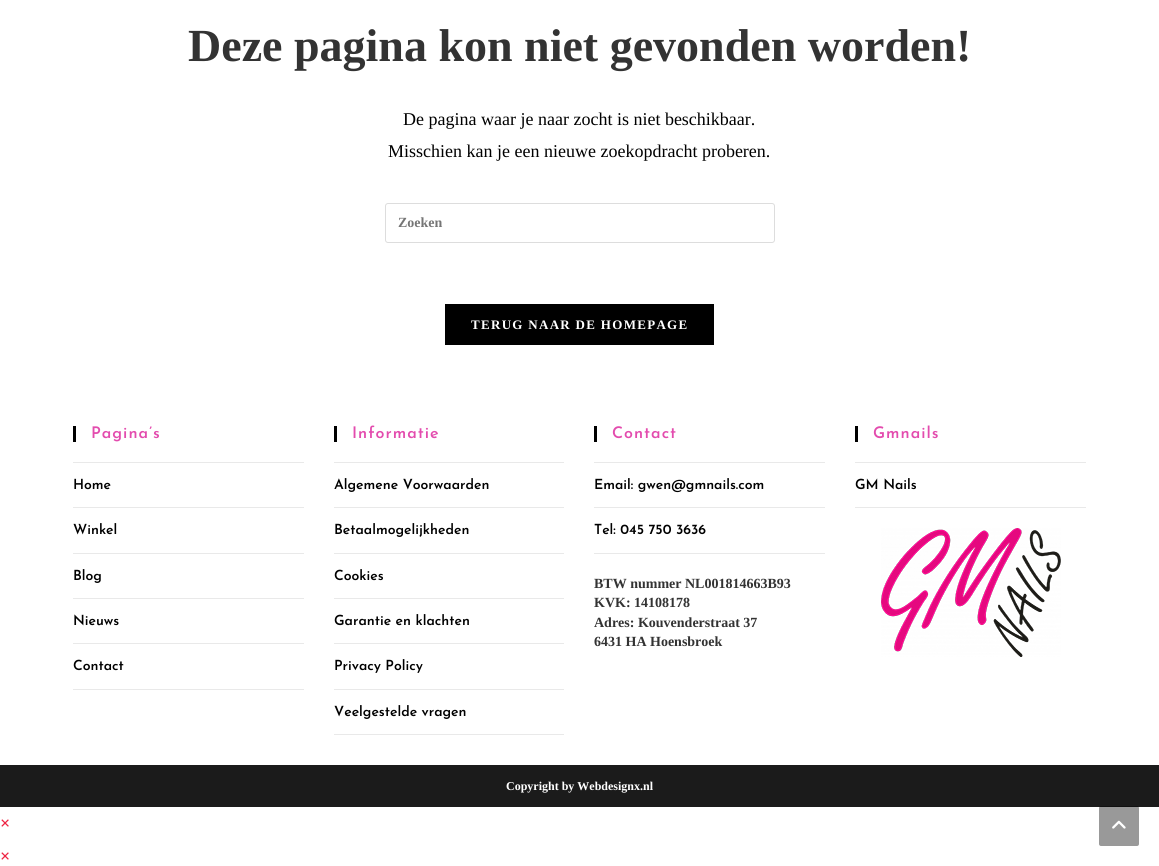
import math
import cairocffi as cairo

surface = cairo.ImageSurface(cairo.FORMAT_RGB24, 1159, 866)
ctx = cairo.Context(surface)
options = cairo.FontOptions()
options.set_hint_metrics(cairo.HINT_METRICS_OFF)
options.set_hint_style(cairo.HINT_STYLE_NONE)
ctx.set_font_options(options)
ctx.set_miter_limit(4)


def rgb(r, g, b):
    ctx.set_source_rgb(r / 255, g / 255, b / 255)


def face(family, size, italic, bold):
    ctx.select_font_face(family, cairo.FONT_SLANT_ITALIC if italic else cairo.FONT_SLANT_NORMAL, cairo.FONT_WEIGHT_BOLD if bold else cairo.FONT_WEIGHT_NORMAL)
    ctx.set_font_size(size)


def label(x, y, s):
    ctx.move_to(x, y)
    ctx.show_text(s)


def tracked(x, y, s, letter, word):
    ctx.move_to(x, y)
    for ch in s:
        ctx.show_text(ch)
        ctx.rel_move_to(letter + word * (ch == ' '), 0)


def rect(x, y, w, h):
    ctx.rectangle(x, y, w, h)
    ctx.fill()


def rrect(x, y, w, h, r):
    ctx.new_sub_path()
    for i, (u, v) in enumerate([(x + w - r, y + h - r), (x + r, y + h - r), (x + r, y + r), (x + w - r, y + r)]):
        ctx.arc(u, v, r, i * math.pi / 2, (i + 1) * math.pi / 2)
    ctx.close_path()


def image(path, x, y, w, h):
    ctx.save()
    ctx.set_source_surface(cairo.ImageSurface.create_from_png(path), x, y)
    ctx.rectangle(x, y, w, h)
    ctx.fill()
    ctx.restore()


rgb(255, 255, 255)
ctx.paint()
face('Liberation Serif', 46, 0, 1)
rgb(51, 51, 51)
label(188, 61, 'Deze pagina kon niet gevonden worden!')
face('Liberation Serif', 18, 0, 0)
rgb(0, 0, 0)
label(403, 125, 'De pagina waar je naar zocht is niet beschikbaar.')
label(388, 157, 'Misschien kan je een nieuwe zoekopdracht proberen.')
rrect(385.5, 203.5, 389, 39, 2.5)
rgb(221, 221, 221)
ctx.set_line_width(1)
ctx.stroke()
face('Liberation Serif', 14, 0, 1)
rgb(117, 117, 117)
label(398, 227, 'Zoeken')
rgb(0, 0, 0)
rect(445, 304, 269, 41)
face('Liberation Serif', 13, 0, 1)
rgb(255, 255, 255)
tracked(471, 329, 'TERUG NAAR DE HOMEPAGE', 1.3, 0)
rgb(0, 0, 0)
rect(73, 426, 3, 16)
face('Josefin Sans SemiBold', 16, 0, 0)
rgb(227, 76, 174)
tracked(91, 438, 'Pagina’s', 1, 0)
rgb(233, 233, 233)
rect(73, 462, 231, 1)
rect(73, 507, 231, 1)
face('Josefin Sans SemiBold', 14, 0, 0)
rgb(0, 0, 0)
label(73, 489, 'Home')
rgb(233, 233, 233)
rect(73, 553, 231, 1)
rgb(0, 0, 0)
label(73, 534, 'Winkel')
rgb(233, 233, 233)
rect(73, 598, 231, 1)
rgb(0, 0, 0)
label(73, 580, 'Blog')
rgb(233, 233, 233)
rect(73, 643, 231, 1)
rgb(0, 0, 0)
label(73, 625, 'Nieuws')
rgb(233, 233, 233)
rect(73, 689, 231, 1)
rgb(0, 0, 0)
label(73, 670, 'Contact')
rect(334, 426, 3, 16)
face('Josefin Sans SemiBold', 16, 0, 0)
rgb(227, 76, 174)
tracked(352, 438, 'Informatie', 1, 0)
rgb(233, 233, 233)
rect(334, 462, 230, 1)
rect(334, 507, 230, 1)
face('Josefin Sans SemiBold', 14, 0, 0)
rgb(0, 0, 0)
label(334, 489, 'Algemene Voorwaarden')
rgb(233, 233, 233)
rect(334, 553, 230, 1)
rgb(0, 0, 0)
label(334, 534, 'Betaalmogelijkheden')
rgb(233, 233, 233)
rect(334, 598, 230, 1)
rgb(0, 0, 0)
label(334, 580, 'Cookies')
rgb(233, 233, 233)
rect(334, 643, 230, 1)
rgb(0, 0, 0)
label(334, 625, 'Garantie en klachten')
rgb(233, 233, 233)
rect(334, 689, 230, 1)
rgb(0, 0, 0)
label(334, 670, 'Privacy Policy')
rgb(233, 233, 233)
rect(334, 734, 230, 1)
rgb(0, 0, 0)
label(334, 716, 'Veelgestelde vragen')
rect(594, 426, 3, 16)
face('Josefin Sans SemiBold', 16, 0, 0)
rgb(227, 76, 174)
tracked(612, 438, 'Contact', 1, 0)
rgb(233, 233, 233)
rect(594, 462, 231, 1)
rect(594, 507, 231, 1)
face('Josefin Sans SemiBold', 14, 0, 0)
rgb(0, 0, 0)
label(594, 489, 'Email: gwen@gmnails.com')
rgb(233, 233, 233)
rect(594, 553, 231, 1)
rgb(0, 0, 0)
label(594, 534, 'Tel: 045 750 3636')
face('Liberation Serif', 14, 0, 1)
rgb(51, 51, 51)
label(594, 588, 'BTW nummer NL001814663B93')
label(594, 607, 'KVK: 14108178')
label(594, 627, 'Adres: Kouvenderstraat 37')
label(594, 646, '6431 HA Hoensbroek')
rgb(0, 0, 0)
rect(855, 426, 3, 16)
face('Josefin Sans SemiBold', 16, 0, 0)
rgb(227, 76, 174)
tracked(873, 438, 'Gmnails', 1, 0)
rgb(233, 233, 233)
rect(855, 462, 231, 1)
rect(855, 507, 231, 1)
face('Josefin Sans SemiBold', 14, 0, 0)
rgb(0, 0, 0)
label(855, 489, 'GM Nails')
image('image0.png', 881, 528, 180, 129)
rgb(27, 27, 27)
rect(0, 765, 1159, 42)
face('Liberation Serif', 12, 0, 1)
rgb(255, 255, 255)
label(506, 790, 'Copyright by Webdesignx.nl')
face('Liberation Serif', 18, 0, 1)
rgb(238, 34, 65)
label(0, 829, '×')
ctx.set_source_rgba(0, 0, 0, 0.4)
rrect(1099, 806, 40, 40, 2)
ctx.fill()
image('image1.png', 1112, 820, 14, 9)
rgb(238, 34, 65)
label(0, 862, '×')
surface.write_to_png('render.png')
